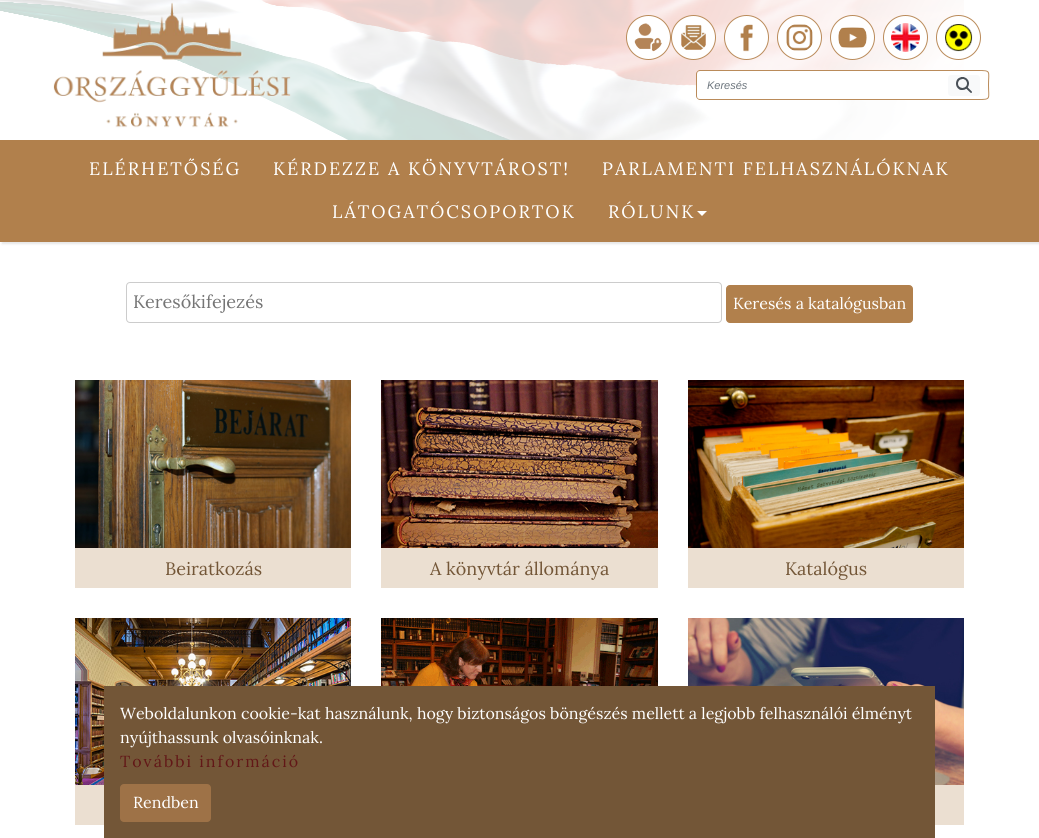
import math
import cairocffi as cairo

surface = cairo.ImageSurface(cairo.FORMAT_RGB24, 1039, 838)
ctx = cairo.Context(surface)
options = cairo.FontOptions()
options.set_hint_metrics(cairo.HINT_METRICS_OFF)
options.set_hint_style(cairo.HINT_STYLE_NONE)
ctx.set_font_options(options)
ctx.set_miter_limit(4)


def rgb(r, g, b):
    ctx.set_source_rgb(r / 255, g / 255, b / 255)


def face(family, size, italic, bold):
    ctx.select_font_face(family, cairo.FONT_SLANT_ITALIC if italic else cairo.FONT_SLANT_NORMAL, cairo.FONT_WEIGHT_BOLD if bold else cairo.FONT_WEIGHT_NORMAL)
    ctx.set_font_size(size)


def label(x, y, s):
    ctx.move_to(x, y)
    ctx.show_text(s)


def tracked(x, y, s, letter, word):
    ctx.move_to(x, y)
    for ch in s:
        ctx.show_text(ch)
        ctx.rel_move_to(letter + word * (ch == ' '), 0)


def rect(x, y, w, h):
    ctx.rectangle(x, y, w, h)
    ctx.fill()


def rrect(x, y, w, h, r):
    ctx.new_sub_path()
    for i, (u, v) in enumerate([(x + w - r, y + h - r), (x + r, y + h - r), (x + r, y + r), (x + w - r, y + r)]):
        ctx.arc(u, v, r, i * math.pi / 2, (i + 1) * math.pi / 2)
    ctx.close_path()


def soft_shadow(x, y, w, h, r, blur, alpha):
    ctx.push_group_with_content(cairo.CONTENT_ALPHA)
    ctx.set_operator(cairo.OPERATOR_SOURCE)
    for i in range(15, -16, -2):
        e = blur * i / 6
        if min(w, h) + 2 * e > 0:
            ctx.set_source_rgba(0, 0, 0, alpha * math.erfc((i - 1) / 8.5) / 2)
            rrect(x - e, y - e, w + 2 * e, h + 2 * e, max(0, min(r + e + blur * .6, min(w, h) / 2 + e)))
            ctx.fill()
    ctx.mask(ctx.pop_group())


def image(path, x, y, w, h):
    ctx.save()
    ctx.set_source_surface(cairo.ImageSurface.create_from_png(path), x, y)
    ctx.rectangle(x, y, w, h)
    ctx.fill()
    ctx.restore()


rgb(255, 255, 255)
ctx.paint()
image('image0.png', 0, 0, 964, 140)
image('image1.png', 53, 2, 238, 126)
rgb(255, 255, 255)
ctx.arc(648.5, 37.5, 22, 0, 2 * math.pi)
ctx.fill_preserve()
rgb(186, 139, 90)
ctx.set_line_width(1)
ctx.stroke()
image('image2.png', 634, 23, 28, 29)
rgb(255, 255, 255)
ctx.arc(693.5, 37.5, 22, 0, 2 * math.pi)
ctx.fill_preserve()
rgb(186, 139, 90)
ctx.stroke()
image('image3.png', 681, 25, 25, 25)
rgb(255, 255, 255)
ctx.arc(746.5, 37.5, 22, 0, 2 * math.pi)
ctx.fill_preserve()
rgb(186, 139, 90)
ctx.stroke()
image('image4.png', 740, 24, 13, 28)
rgb(255, 255, 255)
ctx.arc(799.5, 37.5, 22, 0, 2 * math.pi)
ctx.fill_preserve()
rgb(186, 139, 90)
ctx.stroke()
image('image5.png', 786, 24, 27, 27)
rgb(255, 255, 255)
ctx.arc(852.5, 37.5, 22, 0, 2 * math.pi)
ctx.fill_preserve()
rgb(186, 139, 90)
ctx.stroke()
image('image6.png', 838, 27, 29, 21)
rgb(255, 255, 255)
ctx.arc(905.5, 37.5, 22, 0, 2 * math.pi)
ctx.fill_preserve()
rgb(186, 139, 90)
ctx.stroke()
image('image7.png', 891, 23, 29, 29)
rgb(255, 255, 255)
ctx.arc(958.5, 37.5, 22, 0, 2 * math.pi)
ctx.fill_preserve()
rgb(186, 139, 90)
ctx.stroke()
image('image8.png', 945, 24, 28, 28)
rgb(255, 255, 255)
ctx.new_path()
ctx.move_to(700, 71)
ctx.line_to(940, 71)
ctx.line_to(940, 99)
ctx.line_to(700, 99)
ctx.curve_to(698.5, 99, 697, 97.5, 697, 96)
ctx.line_to(697, 74)
ctx.curve_to(697, 72.5, 698.5, 71, 700, 71)
ctx.close_path()
ctx.fill()
rgb(186, 139, 90)
ctx.set_fill_rule(cairo.FILL_RULE_EVEN_ODD)
ctx.new_path()
ctx.move_to(700, 70)
ctx.line_to(940, 70)
ctx.line_to(940, 100)
ctx.line_to(700, 100)
ctx.curve_to(698, 100, 696, 98, 696, 96)
ctx.line_to(696, 74)
ctx.curve_to(696, 72, 698, 70, 700, 70)
ctx.close_path()
ctx.move_to(700, 71)
ctx.line_to(940, 71)
ctx.line_to(940, 99)
ctx.line_to(700, 99)
ctx.curve_to(698, 99, 697, 98, 697, 96)
ctx.line_to(697, 74)
ctx.curve_to(697, 72, 698, 71, 700, 71)
ctx.close_path()
ctx.fill()
face('Liberation Sans', 11, 1, 0)
rgb(108, 117, 125)
label(707, 89, 'Keresés')
rgb(255, 255, 255)
ctx.new_path()
ctx.move_to(940, 71)
ctx.line_to(985, 71)
ctx.curve_to(986.5, 71, 988, 72.5, 988, 74)
ctx.line_to(988, 96)
ctx.curve_to(988, 97.5, 986.5, 99, 985, 99)
ctx.line_to(940, 99)
ctx.close_path()
ctx.fill()
rgb(186, 139, 90)
ctx.new_path()
ctx.move_to(940, 70)
ctx.line_to(978, 70)
ctx.curve_to(992, 70, 989, 71, 989, 85)
ctx.curve_to(989, 99, 992, 100, 978, 100)
ctx.line_to(940, 100)
ctx.close_path()
ctx.move_to(940, 71)
ctx.line_to(978, 71)
ctx.curve_to(991, 71, 988, 71, 988, 85)
ctx.curve_to(988, 99, 991, 99, 978, 99)
ctx.line_to(940, 99)
ctx.close_path()
ctx.fill()
rgb(248, 249, 250)
rrect(948, 75, 32, 21, 3)
ctx.fill()
image('image9.png', 956, 77, 16, 16)
rgb(0, 0, 0)
soft_shadow(2, 142, 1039, 102, 0, 1, 0.1)
rgb(177, 128, 76)
rect(0, 140, 1039, 102)
face('Lora', 18, 0, 0)
rgb(255, 255, 255)
tracked(89, 175, 'ELÉRHETŐSÉG', 2, 0)
tracked(273, 175, 'KÉRDEZZE A KÖNYVTÁROST!', 2, 0)
tracked(602, 175, 'PARLAMENTI FELHASZNÁLÓKNAK', 2, 0)
tracked(332, 218, 'LÁTOGATÓCSOPORTOK', 2, 0)
tracked(608, 218, 'RÓLUNK', 2, 0)
ctx.set_fill_rule(cairo.FILL_RULE_WINDING)
ctx.new_path()
ctx.move_to(697, 211)
ctx.line_to(707, 211)
ctx.line_to(702, 216)
ctx.close_path()
ctx.fill()
rrect(126.5, 282.5, 595, 40, 3.5)
rgb(204, 204, 204)
ctx.stroke()
rgb(117, 117, 117)
label(133, 308, 'Keresőkifejezés')
rgb(177, 128, 76)
rrect(726.5, 285.5, 186, 37, 3.5)
ctx.fill_preserve()
ctx.stroke()
face('Lora', 16, 0, 0)
rgb(255, 255, 255)
label(733, 309, 'Keresés a katalógusban')
image('image10.png', 75, 380, 276, 168)
rgb(235, 223, 209)
rect(75, 548, 276, 40)
face('Lora', 18, 0, 0)
rgb(115, 86, 55)
label(165, 575, 'Beiratkozás')
image('image11.png', 381, 380, 277, 168)
rgb(235, 223, 209)
rect(381, 548, 277, 40)
rgb(115, 86, 55)
label(430, 575, 'A könyvtár állománya')
image('image12.png', 688, 380, 276, 168)
rgb(235, 223, 209)
rect(688, 548, 276, 40)
rgb(115, 86, 55)
label(785, 575, 'Katalógus')
image('image13.png', 75, 618, 276, 167)
rgb(235, 223, 209)
rect(75, 785, 29, 40)
image('image14.png', 381, 618, 277, 68)
image('image15.png', 688, 618, 276, 167)
rect(935, 785, 29, 40)
rgb(115, 86, 55)
rect(104, 686, 831, 152)
face('Lora', 16, 0, 0)
rgb(255, 255, 255)
label(120, 719, 'Weboldalunkon cookie-kat használunk, hogy biztonságos böngészés mellett a legjobb felhasználói élményt')
label(120, 743, 'nyújthassunk olvasóinknak.')
rgb(98, 23, 23)
tracked(120, 767, 'További információ', 2, 0)
rgb(158, 114, 71)
rrect(120, 784, 91, 38, 4)
ctx.fill()
rgb(255, 255, 255)
label(133, 808, 'Rendben')
surface.write_to_png('render.png')
